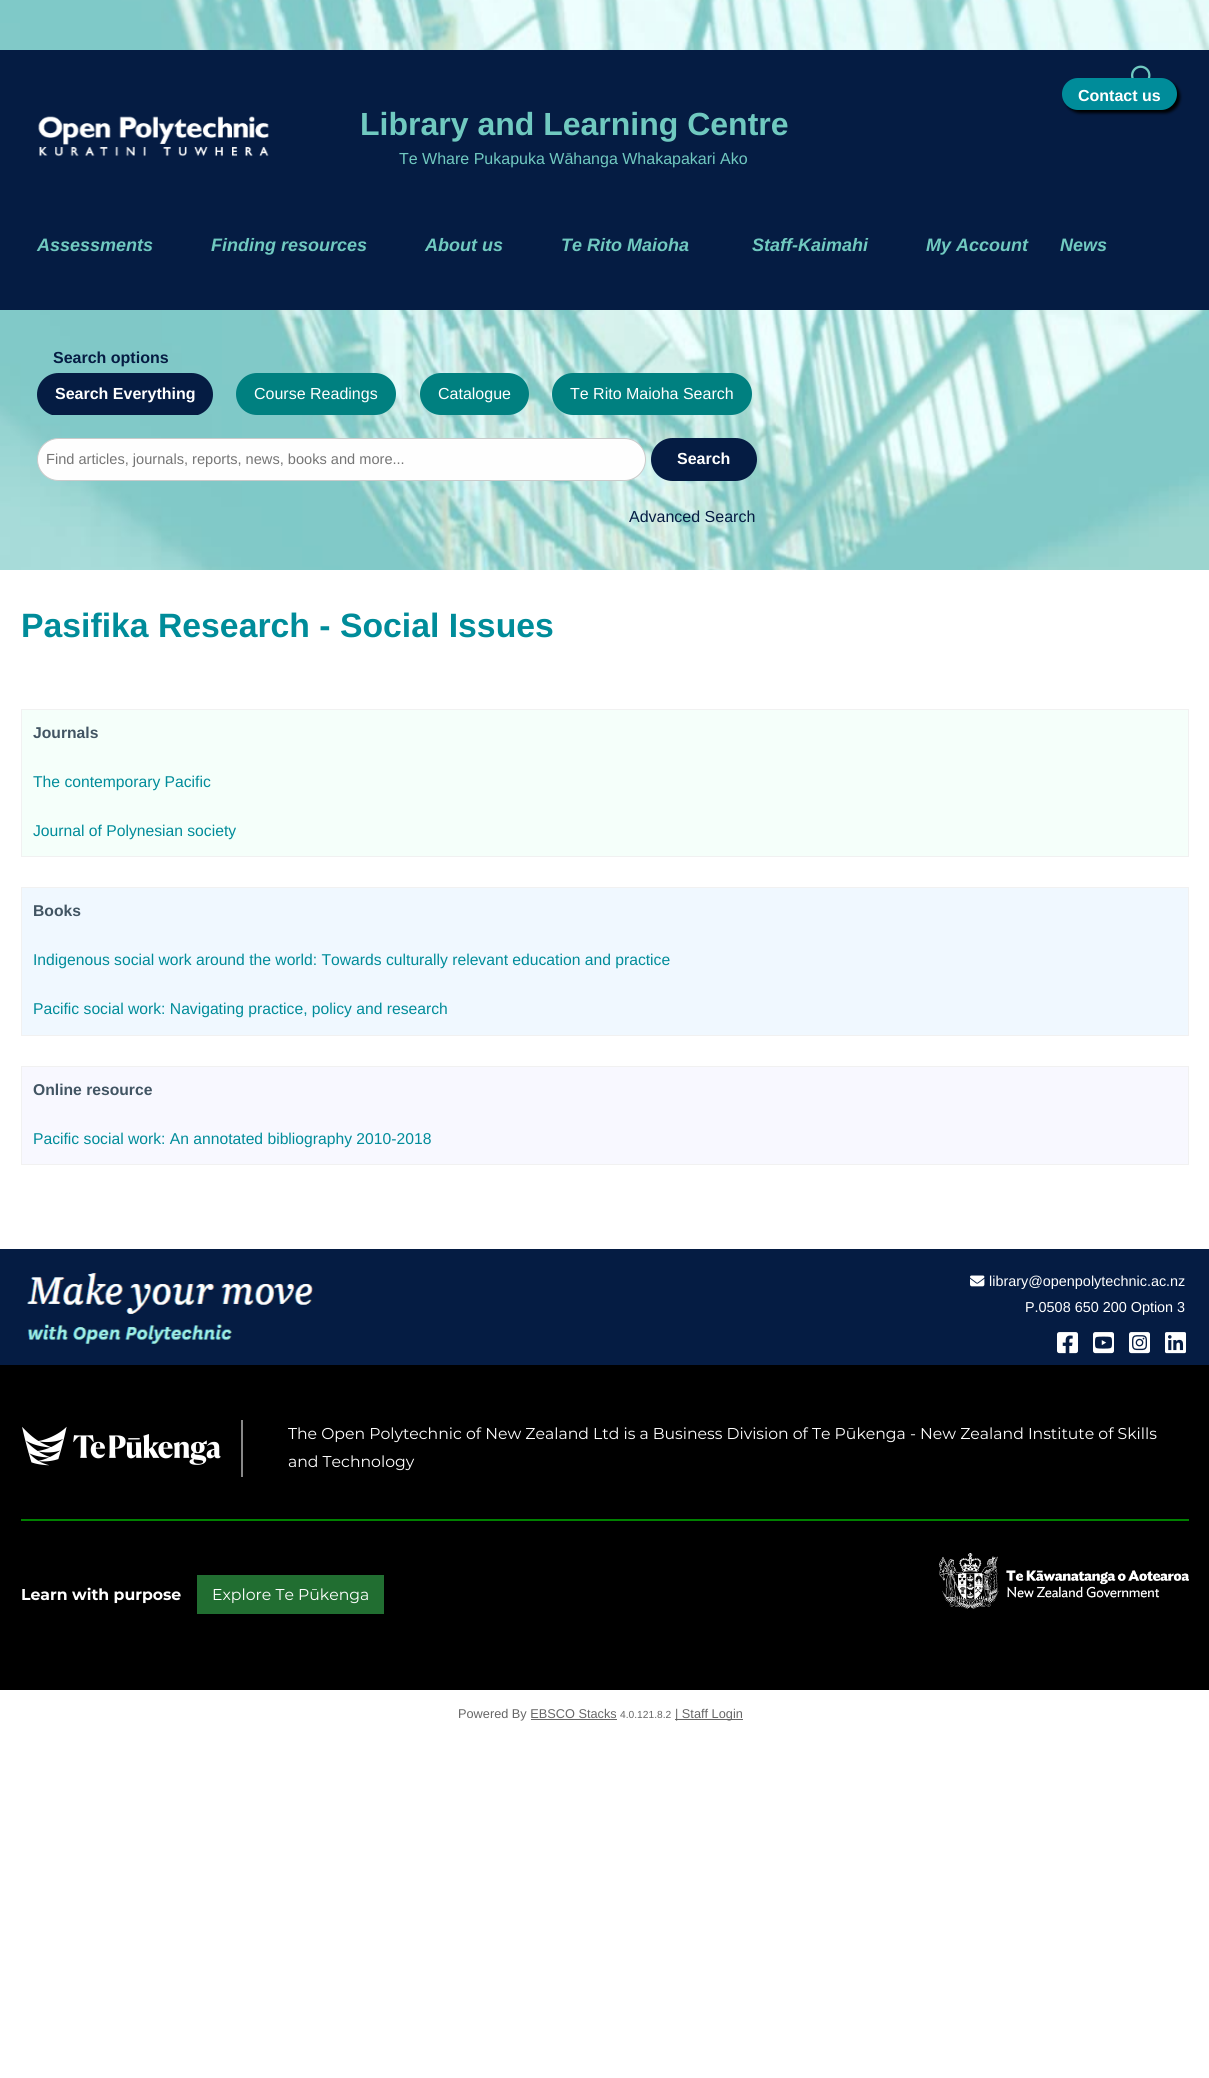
import math
import cairocffi as cairo

surface = cairo.ImageSurface(cairo.FORMAT_RGB24, 1209, 2078)
ctx = cairo.Context(surface)
options = cairo.FontOptions()
options.set_hint_metrics(cairo.HINT_METRICS_OFF)
options.set_hint_style(cairo.HINT_STYLE_NONE)
ctx.set_font_options(options)
ctx.set_miter_limit(4)


def rgb(r, g, b):
    ctx.set_source_rgb(r / 255, g / 255, b / 255)


def face(family, size, italic, bold):
    ctx.select_font_face(family, cairo.FONT_SLANT_ITALIC if italic else cairo.FONT_SLANT_NORMAL, cairo.FONT_WEIGHT_BOLD if bold else cairo.FONT_WEIGHT_NORMAL)
    ctx.set_font_size(size)


def label(x, y, s):
    ctx.move_to(x, y)
    ctx.show_text(s)


def rect(x, y, w, h):
    ctx.rectangle(x, y, w, h)
    ctx.fill()


def rrect(x, y, w, h, r):
    ctx.new_sub_path()
    for i, (u, v) in enumerate([(x + w - r, y + h - r), (x + r, y + h - r), (x + r, y + r), (x + w - r, y + r)]):
        ctx.arc(u, v, r, i * math.pi / 2, (i + 1) * math.pi / 2)
    ctx.close_path()


def soft_shadow(x, y, w, h, r, blur, alpha):
    ctx.push_group_with_content(cairo.CONTENT_ALPHA)
    ctx.set_operator(cairo.OPERATOR_SOURCE)
    for i in range(15, -16, -2):
        e = blur * i / 6
        if min(w, h) + 2 * e > 0:
            ctx.set_source_rgba(0, 0, 0, alpha * math.erfc((i - 1) / 8.5) / 2)
            rrect(x - e, y - e, w + 2 * e, h + 2 * e, max(0, min(r + e + blur * .6, min(w, h) / 2 + e)))
            ctx.fill()
    ctx.mask(ctx.pop_group())


def image(path, x, y, w, h):
    ctx.save()
    ctx.set_source_surface(cairo.ImageSurface.create_from_png(path), x, y)
    ctx.rectangle(x, y, w, h)
    ctx.fill()
    ctx.restore()


rgb(255, 255, 255)
ctx.paint()
image('image0.png', 0, 0, 1209, 570)
rgb(5, 28, 67)
rect(0, 50, 1209, 260)
image('image1.png', 1131, 65, 20, 13)
rgb(0, 0, 0)
soft_shadow(1065, 81, 115, 32, 16, 1.5, 1)
rgb(0, 140, 154)
rrect(1062, 78, 115, 32, 16)
ctx.fill()
face('Liberation Sans', 16, 0, 1)
rgb(255, 255, 255)
label(1078, 101, 'Contact us')
image('image2.png', 38, 116, 231, 41)
face('Liberation Sans', 32, 0, 1)
rgb(112, 201, 192)
label(360, 135, 'Library and Learning Centre')
face('Liberation Sans', 16, 0, 0)
label(399, 164, 'Te Whare Pukapuka Wāhanga Whakapakari Ako')
face('Liberation Sans', 18, 1, 1)
label(37, 251, 'Assessments')
label(211, 251, 'Finding resources')
label(425, 251, 'About us')
label(561, 251, 'Te Rito Maioha')
label(752, 251, 'Staff-Kaimahi')
label(926, 251, 'My Account')
label(1060, 251, 'News')
face('Liberation Sans', 16, 0, 1)
rgb(5, 28, 67)
label(53, 363, 'Search options')
ctx.save()
ctx.rectangle(37, 373, 720, 42)
ctx.clip()
rrect(37, 373, 176, 43, 21.5)
ctx.fill()
ctx.restore()
rgb(255, 255, 255)
label(55, 399, 'Search Everything')
rgb(0, 128, 128)
rrect(236, 373, 160, 42, 21)
ctx.fill()
face('Liberation Sans', 16, 0, 0)
rgb(255, 255, 255)
label(254, 399, 'Course Readings')
rgb(0, 128, 128)
rrect(420, 373, 109, 42, 21)
ctx.fill()
rgb(255, 255, 255)
label(438, 399, 'Catalogue')
rgb(0, 128, 128)
rrect(552, 373, 200, 42, 21)
ctx.fill()
rgb(255, 255, 255)
label(570, 399, 'Te Rito Maioha Search')
rgb(254, 254, 254)
rrect(37.5, 438.5, 608, 42, 21)
ctx.fill_preserve()
rgb(202, 202, 202)
ctx.set_line_width(1)
ctx.stroke()
face('Liberation Sans', 14.6, 0, 0)
rgb(117, 117, 117)
label(46, 464, 'Find articles, journals, reports, news, books and more...')
rgb(5, 28, 67)
rrect(651, 438, 106, 43, 21.5)
ctx.fill()
face('Liberation Sans', 16, 0, 1)
rgb(255, 255, 255)
label(677, 464, 'Search')
face('Liberation Sans', 16, 0, 0)
rgb(5, 28, 67)
label(629, 522, 'Advanced Search')
face('Liberation Sans', 33.75, 0, 1)
rgb(0, 140, 154)
label(21, 637, 'Pasifika Research - Social Issues')
rgb(241, 241, 241)
rect(21, 709, 1168, 1)
rect(1188, 709, 1, 148)
rect(21, 856, 1168, 1)
rect(21, 709, 1, 148)
rgb(245, 255, 250)
rect(22, 710, 1166, 146)
face('Liberation Sans', 15.68, 0, 1)
rgb(66, 85, 99)
label(33, 738, 'Journals')
face('Liberation Sans', 15.68, 0, 0)
rgb(0, 140, 154)
label(33, 787, 'The contemporary Pacific')
label(33, 836, 'Journal of Polynesian society')
rgb(241, 241, 241)
rect(21, 887, 1168, 1)
rect(1188, 887, 1, 149)
rect(21, 1035, 1168, 1)
rect(21, 887, 1, 149)
rgb(240, 248, 255)
rect(22, 888, 1166, 147)
face('Liberation Sans', 15.68, 0, 1)
rgb(66, 85, 99)
label(33, 916, 'Books')
face('Liberation Sans', 15.68, 0, 0)
rgb(0, 140, 154)
label(33, 965, 'Indigenous social work around the world: Towards culturally relevant education and practice')
label(33, 1014, 'Pacific social work: Navigating practice, policy and research')
rgb(241, 241, 241)
rect(21, 1066, 1168, 1)
rect(1188, 1066, 1, 99)
rect(21, 1164, 1168, 1)
rect(21, 1066, 1, 99)
rgb(248, 248, 255)
rect(22, 1067, 1166, 97)
face('Liberation Sans', 15.68, 0, 1)
rgb(66, 85, 99)
label(33, 1095, 'Online resource')
face('Liberation Sans', 15.68, 0, 0)
rgb(0, 140, 154)
label(33, 1144, 'Pacific social work: An annotated bibliography 2010-2018')
rgb(5, 28, 67)
rect(0, 1249, 1209, 116)
image('image3.png', 27, 1273, 286, 71)
image('image4.png', 970, 1275, 15, 12)
face('Liberation Sans', 14.4, 0, 0)
rgb(255, 255, 255)
label(989, 1286, 'library@openpolytechnic.ac.nz')
label(1025, 1312, 'P.0508 650 200 Option 3')
image('image5.png', 1057, 1332, 21, 22)
image('image6.png', 1093, 1332, 21, 22)
image('image7.png', 1129, 1332, 21, 22)
image('image8.png', 1165, 1332, 21, 22)
rgb(0, 0, 0)
rect(0, 1365, 1209, 325)
rgb(0, 128, 0)
rect(21, 1519, 1168, 2)
image('image9.png', 22, 1426, 199, 40)
rgb(136, 136, 136)
rect(241, 1420, 2, 57)
face('Montserrat Thin', 15.68, 0, 0)
rgb(255, 255, 255)
label(288, 1439, 'The Open Polytechnic of New Zealand Ltd is a Business Division of Te Pūkenga - New Zealand Institute of Skills')
label(288, 1467, 'and Technology')
face('Montserrat', 15.68, 0, 1)
label(21, 1600, 'Learn with purpose')
rgb(33, 110, 49)
rect(197, 1575, 187, 39)
face('Montserrat Thin', 15.68, 0, 0)
rgb(255, 255, 255)
label(212, 1600, 'Explore Te Pūkenga')
image('image10.png', 939, 1553, 250, 56)
face('Liberation Sans', 12.75, 0, 0)
rgb(102, 102, 102)
label(458, 1718, 'Powered By EBSCO Stacks')
rect(531, 1719, 86, 1)
face('Liberation Sans', 10.25, 0, 0)
label(620, 1718, '4.0.121.8.2')
rect(675, 1719, 68, 1)
face('Liberation Sans', 12.75, 0, 0)
label(675, 1718, '| Staff Login')
surface.write_to_png('render.png')
